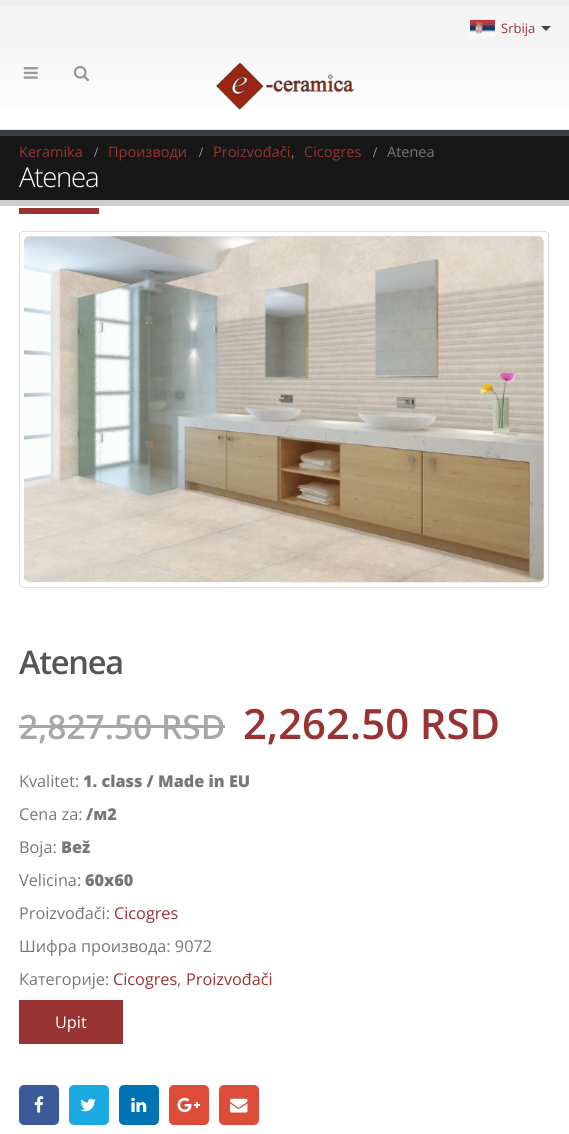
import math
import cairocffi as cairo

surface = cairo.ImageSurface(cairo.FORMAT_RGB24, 569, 1134)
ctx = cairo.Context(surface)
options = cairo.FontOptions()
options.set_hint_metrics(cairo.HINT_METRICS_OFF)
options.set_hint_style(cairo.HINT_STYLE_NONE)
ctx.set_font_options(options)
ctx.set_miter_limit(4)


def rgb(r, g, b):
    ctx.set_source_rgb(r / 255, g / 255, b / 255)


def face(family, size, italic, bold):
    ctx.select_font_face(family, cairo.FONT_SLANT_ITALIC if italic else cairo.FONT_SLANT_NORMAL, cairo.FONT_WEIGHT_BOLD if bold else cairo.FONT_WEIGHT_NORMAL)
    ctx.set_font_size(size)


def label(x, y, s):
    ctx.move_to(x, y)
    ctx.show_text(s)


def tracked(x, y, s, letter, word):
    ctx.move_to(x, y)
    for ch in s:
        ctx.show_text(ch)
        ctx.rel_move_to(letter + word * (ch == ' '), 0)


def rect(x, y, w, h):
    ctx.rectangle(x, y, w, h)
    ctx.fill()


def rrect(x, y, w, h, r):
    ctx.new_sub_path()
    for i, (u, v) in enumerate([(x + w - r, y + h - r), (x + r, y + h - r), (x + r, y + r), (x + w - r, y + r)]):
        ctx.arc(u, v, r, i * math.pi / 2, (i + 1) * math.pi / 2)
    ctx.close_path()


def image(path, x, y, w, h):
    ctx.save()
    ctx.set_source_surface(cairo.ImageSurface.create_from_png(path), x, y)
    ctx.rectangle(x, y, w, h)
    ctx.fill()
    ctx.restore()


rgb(255, 255, 255)
ctx.paint()
rgb(237, 237, 237)
rect(0, 0, 569, 6)
rgb(244, 244, 244)
rect(0, 6, 569, 40)
rgb(237, 237, 237)
rect(0, 129, 569, 1)
image('image0.png', 470, 20, 25, 16)
face('Open Sans', 13, 0, 0)
rgb(153, 51, 51)
label(501, 33, 'Srbija')
rgb(68, 68, 68)
ctx.new_path()
ctx.move_to(541, 26)
ctx.line_to(551, 26)
ctx.line_to(546, 31)
ctx.close_path()
ctx.fill()
gradient = cairo.LinearGradient(285, 46, 285, 129)
gradient.add_color_stop_rgba(0, 0.965, 0.965, 0.965, 1)
gradient.add_color_stop_rgba(1, 1, 1, 1, 1)
ctx.set_source(gradient)
rect(0, 46, 569, 60)
image('image1.png', 23, 67, 15, 12)
image('image2.png', 73, 65, 16, 16)
image('image3.png', 216, 62, 138, 48)
rgb(23, 23, 23)
rect(0, 136, 569, 64)
rgb(56, 64, 69)
rect(0, 130, 569, 6)
rgb(204, 204, 204)
rect(0, 200, 569, 6)
face('Open Sans', 14.5, 0, 0)
rgb(153, 51, 51)
label(19, 157, 'Keramika')
face('Liberation Serif', 14.5, 0, 0)
rgb(195, 195, 195)
label(94, 157, '/')
face('Open Sans', 14.5, 0, 0)
rgb(153, 51, 51)
label(108, 157, 'Производи')
face('Liberation Serif', 14.5, 0, 0)
rgb(195, 195, 195)
label(199, 157, '/')
face('Open Sans', 14.5, 0, 0)
rgb(153, 51, 51)
label(213, 157, 'Proizvođači')
rgb(119, 119, 119)
label(291, 157, ',')
rgb(153, 51, 51)
label(304, 157, 'Cicogres')
face('Liberation Serif', 14.5, 0, 0)
rgb(195, 195, 195)
label(373, 157, '/')
face('Open Sans', 14.5, 0, 0)
rgb(119, 119, 119)
label(387, 157, 'Atenea')
rgb(153, 51, 51)
rect(19, 208, 80, 6)
face('Open Sans Light', 27.5, 0, 0)
rgb(255, 255, 255)
tracked(19, 187, 'Atenea', -1.25, 0)
rrect(19.5, 231.5, 529, 356, 4.5)
rgb(221, 221, 221)
ctx.set_line_width(1)
ctx.stroke()
image('image4.png', 24, 236, 520, 347)
face('Open Sans SemiBold', 32.5, 0, 0)
rgb(85, 85, 85)
tracked(19, 674, 'Atenea', -1.25, 0)
face('Open Sans SemiBold', 33.5, 0, 0)
rgb(167, 167, 167)
label(19, 739, '2,827.50 RSD')
rect(19, 725, 206, 3)
face('Open Sans SemiBold', 41.75, 0, 0)
rgb(153, 51, 51)
label(243, 739, '2,262.50 RSD')
face('Open Sans', 16.25, 0, 0)
rgb(119, 119, 119)
label(19, 787, 'Kvalitet:')
face('Open Sans ExtraBold', 16.25, 0, 0)
label(83, 787, '1. class / Made in EU')
face('Open Sans', 16.25, 0, 0)
label(19, 820, 'Cena za:')
face('Open Sans ExtraBold', 16.25, 0, 0)
label(86, 820, '/м2')
face('Open Sans', 16.25, 0, 0)
label(19, 853, 'Boja:')
face('Open Sans ExtraBold', 16.25, 0, 0)
label(61, 853, 'Bež')
face('Open Sans', 16.25, 0, 0)
label(19, 886, 'Velicina:')
face('Open Sans ExtraBold', 16.25, 0, 0)
label(85, 886, '60x60')
face('Open Sans', 16.25, 0, 0)
label(19, 919, 'Proizvođači:')
rgb(153, 51, 51)
label(114, 919, 'Cicogres')
rgb(119, 119, 119)
label(19, 952, 'Шифра производа: 9072')
label(19, 985, 'Категорије:')
rgb(153, 51, 51)
label(113, 985, 'Cicogres')
rgb(119, 119, 119)
label(177, 985, ',')
rgb(153, 51, 51)
label(186, 985, 'Proizvođači')
rect(19, 1000, 104, 44)
rgb(255, 255, 255)
label(55, 1028, 'Upit')
rgb(59, 90, 154)
rrect(19, 1085, 40, 40, 5)
ctx.fill()
image('image5.png', 34, 1096, 10, 17)
rgb(26, 169, 225)
rrect(69, 1085, 40, 40, 5)
ctx.fill()
image('image6.png', 80, 1098, 16, 14)
rgb(0, 115, 178)
rrect(119, 1085, 40, 40, 5)
ctx.fill()
image('image7.png', 131, 1097, 16, 15)
rgb(221, 75, 57)
rrect(169, 1085, 40, 40, 5)
ctx.fill()
image('image8.png', 177, 1097, 23, 16)
rrect(219, 1085, 40, 40, 5)
ctx.fill()
image('image9.png', 230, 1098, 18, 15)
surface.write_to_png('render.png')
